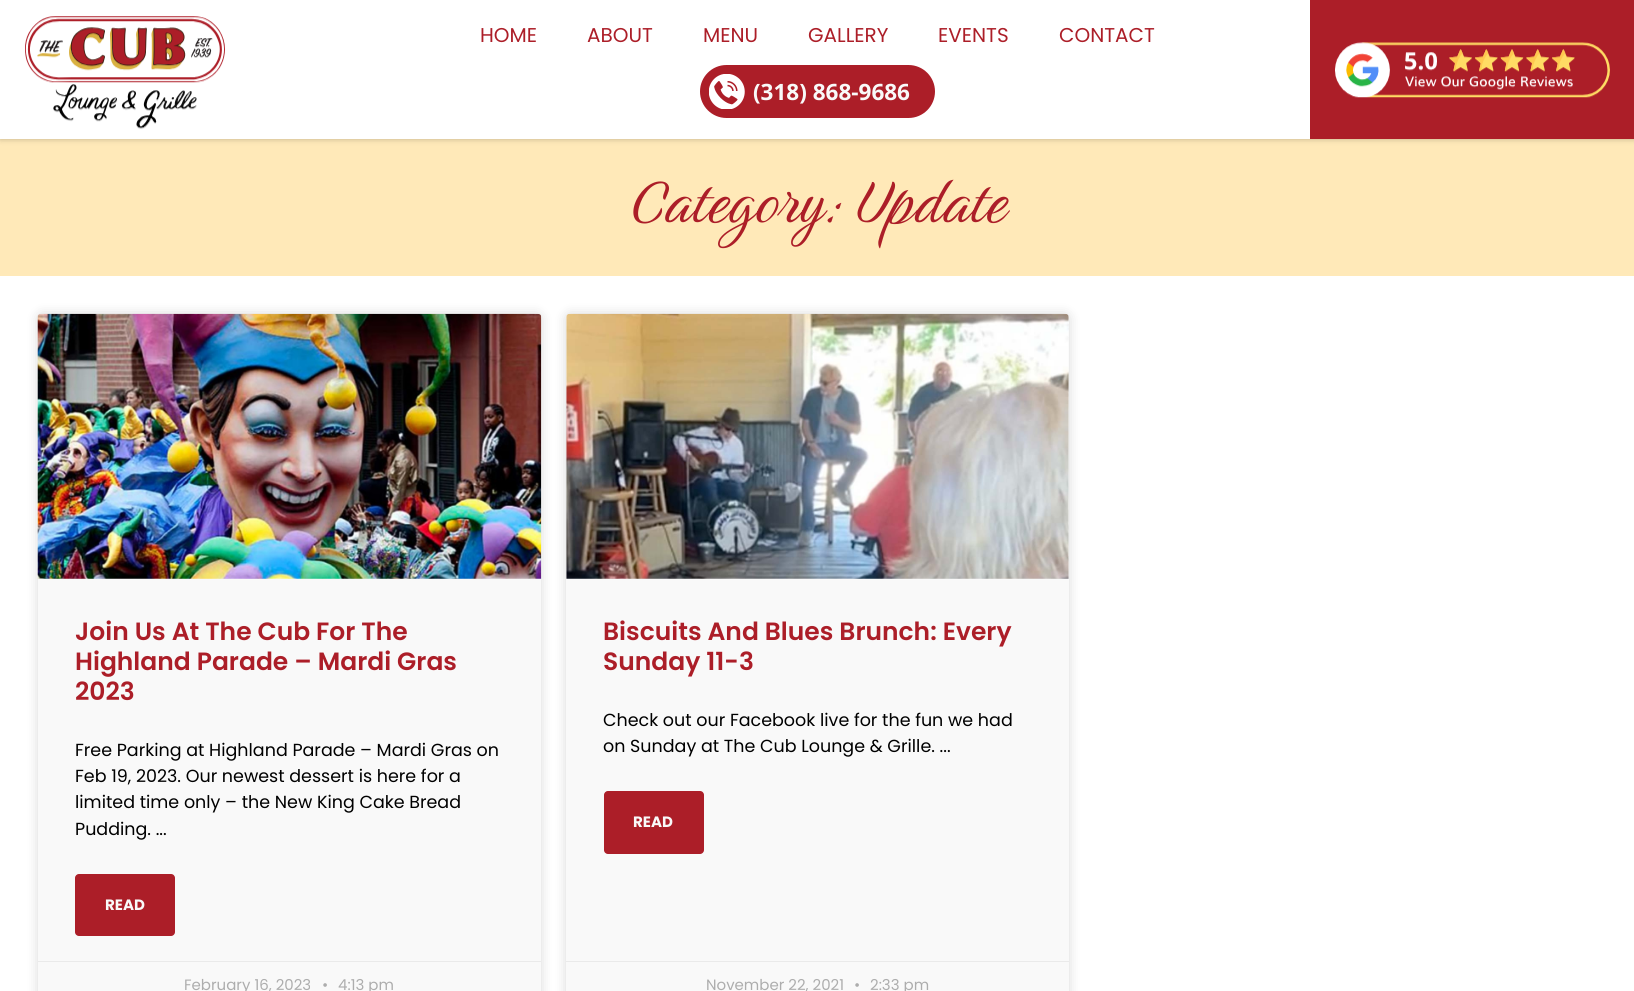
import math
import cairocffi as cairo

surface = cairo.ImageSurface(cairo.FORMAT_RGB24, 1634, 991)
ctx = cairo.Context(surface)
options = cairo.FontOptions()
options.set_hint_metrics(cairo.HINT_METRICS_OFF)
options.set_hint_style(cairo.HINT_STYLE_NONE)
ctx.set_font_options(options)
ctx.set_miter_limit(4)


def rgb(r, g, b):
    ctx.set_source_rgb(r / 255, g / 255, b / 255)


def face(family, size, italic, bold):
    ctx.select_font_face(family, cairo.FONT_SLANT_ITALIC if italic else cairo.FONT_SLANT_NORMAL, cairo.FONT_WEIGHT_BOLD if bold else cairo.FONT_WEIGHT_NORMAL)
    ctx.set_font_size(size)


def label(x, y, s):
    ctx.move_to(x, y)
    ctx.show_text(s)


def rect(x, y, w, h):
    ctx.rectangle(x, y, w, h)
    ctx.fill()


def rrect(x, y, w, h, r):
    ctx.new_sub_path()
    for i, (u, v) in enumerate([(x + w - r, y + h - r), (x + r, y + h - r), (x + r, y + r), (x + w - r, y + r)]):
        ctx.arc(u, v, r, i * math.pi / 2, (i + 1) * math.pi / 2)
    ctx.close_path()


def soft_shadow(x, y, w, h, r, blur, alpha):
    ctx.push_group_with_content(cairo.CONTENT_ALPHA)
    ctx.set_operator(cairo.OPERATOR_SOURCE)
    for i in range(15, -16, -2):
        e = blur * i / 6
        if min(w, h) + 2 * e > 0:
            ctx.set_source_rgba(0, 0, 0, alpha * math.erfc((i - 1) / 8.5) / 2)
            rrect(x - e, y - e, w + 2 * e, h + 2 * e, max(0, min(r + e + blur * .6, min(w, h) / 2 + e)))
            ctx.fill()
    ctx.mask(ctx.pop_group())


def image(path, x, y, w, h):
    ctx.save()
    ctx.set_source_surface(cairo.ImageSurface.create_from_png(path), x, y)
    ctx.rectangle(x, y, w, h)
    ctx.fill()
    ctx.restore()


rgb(255, 255, 255)
ctx.paint()
rgb(255, 233, 184)
rect(0, 139, 1634, 137)
rgb(0, 0, 0)
soft_shadow(0, 0, 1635, 139, 0, 3, 0.25)
rgb(255, 255, 255)
rect(0, 0, 1310, 139)
image('image0.png', 25, 16, 200, 114)
face('Poppins', 20, 0, 0)
rgb(172, 30, 40)
label(480, 42, 'HOME')
label(587, 42, 'ABOUT')
label(703, 42, 'MENU')
label(808, 42, 'GALLERY')
label(938, 42, 'EVENTS')
label(1059, 42, 'CONTACT')
rrect(700, 65, 235, 53, 26.5)
ctx.fill()
image('image1.png', 709, 74, 36, 35)
face('Open Sans', 22.5, 0, 1)
rgb(249, 249, 249)
label(753, 100, '(318) 868-9686')
rgb(172, 30, 40)
rect(1310, 0, 324, 139)
image('image2.png', 1335, 42, 275, 56)
face('Birthstone', 75, 0, 0)
label(629, 222, 'Category: Update')
rgb(0, 0, 0)
soft_shadow(38, 314, 503, 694, 4, 6, 0.15)
rgb(249, 249, 249)
rrect(38, 314, 503, 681, 4)
ctx.fill()
image('image3.png', 37, 313, 505, 266)
face('Poppins SemiBold', 25, 0, 0)
rgb(172, 30, 40)
label(75, 640, 'Join Us At The Cub For The')
label(75, 670, 'Highland Parade – Mardi Gras')
label(75, 700, '2023')
face('Poppins', 17.5, 0, 0)
rgb(0, 0, 0)
label(75, 756, 'Free Parking at Highland Parade – Mardi Gras on')
label(75, 782, 'Feb 19, 2023. Our newest dessert is here for a')
label(75, 808, 'limited time only – the New King Cake Bread')
label(75, 835, 'Pudding. ...')
rgb(172, 30, 40)
rrect(75, 874, 100, 62, 4)
ctx.fill()
face('Poppins', 15, 0, 1)
rgb(249, 249, 249)
label(105, 910, 'READ')
rgb(234, 234, 234)
rect(38, 961, 503, 1)
face('Poppins', 15, 0, 0)
rgb(173, 173, 173)
label(184, 990, 'February 16, 2023')
label(322, 990, '•')
label(338, 990, '4:13 pm')
rgb(0, 0, 0)
soft_shadow(566, 314, 503, 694, 4, 6, 0.15)
rgb(249, 249, 249)
rrect(566, 314, 503, 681, 4)
ctx.fill()
image('image4.png', 566, 313, 503, 266)
face('Poppins SemiBold', 25, 0, 0)
rgb(172, 30, 40)
label(603, 640, 'Biscuits And Blues Brunch: Every')
label(603, 670, 'Sunday 11-3')
face('Poppins', 17.5, 0, 0)
rgb(0, 0, 0)
label(603, 726, 'Check out our Facebook live for the fun we had')
label(603, 752, 'on Sunday at The Cub Lounge & Grille. ...')
rgb(172, 30, 40)
rrect(604, 791, 100, 63, 4)
ctx.fill()
face('Poppins', 15, 0, 1)
rgb(249, 249, 249)
label(633, 827, 'READ')
rgb(234, 234, 234)
rect(566, 961, 503, 1)
face('Poppins', 15, 0, 0)
rgb(173, 173, 173)
label(706, 990, 'November 22, 2021')
label(854, 990, '•')
label(870, 990, '2:33 pm')
surface.write_to_png('render.png')
